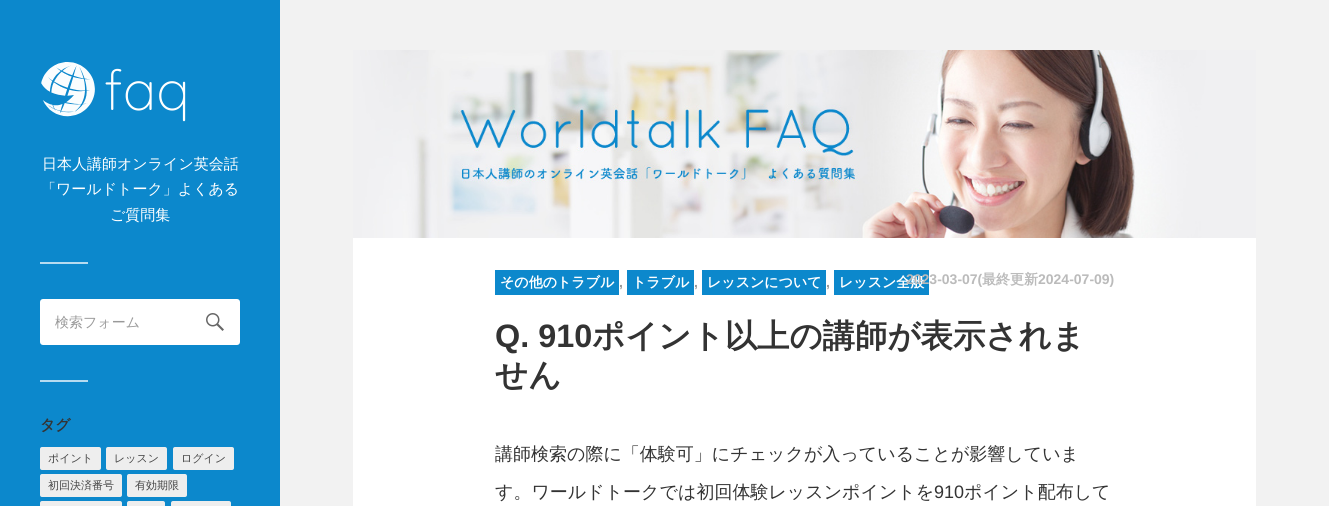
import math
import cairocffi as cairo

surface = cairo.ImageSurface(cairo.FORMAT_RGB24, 1329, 506)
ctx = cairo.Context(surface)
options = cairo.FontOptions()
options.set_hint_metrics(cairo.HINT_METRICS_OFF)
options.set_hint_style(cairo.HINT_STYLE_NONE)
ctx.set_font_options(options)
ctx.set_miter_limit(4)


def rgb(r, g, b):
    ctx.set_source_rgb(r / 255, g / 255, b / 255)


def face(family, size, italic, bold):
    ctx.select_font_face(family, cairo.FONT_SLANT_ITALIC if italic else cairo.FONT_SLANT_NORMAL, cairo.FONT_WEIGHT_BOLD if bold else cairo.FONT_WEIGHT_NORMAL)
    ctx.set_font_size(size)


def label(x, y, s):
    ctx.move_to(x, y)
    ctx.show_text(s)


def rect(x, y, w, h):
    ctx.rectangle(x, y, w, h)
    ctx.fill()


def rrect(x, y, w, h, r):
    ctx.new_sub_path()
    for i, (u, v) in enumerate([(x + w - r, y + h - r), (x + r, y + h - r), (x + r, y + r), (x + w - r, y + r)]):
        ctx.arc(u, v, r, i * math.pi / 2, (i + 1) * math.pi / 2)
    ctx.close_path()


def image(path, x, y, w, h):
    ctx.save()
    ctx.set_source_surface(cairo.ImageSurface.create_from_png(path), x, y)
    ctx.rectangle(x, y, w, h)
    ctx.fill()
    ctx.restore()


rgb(242, 242, 242)
ctx.paint()
rgb(12, 136, 204)
rect(0, 0, 280, 506)
image('image0.png', 41, 62, 54, 55)
face('Quicksand Light', 56, 0, 0)
rgb(255, 255, 255)
label(104, 110, 'faq')
face('WenQuanYi Zen Hei Medium', 15, 0, 0)
label(42, 169, '日本人講師オンライン英会話')
label(41, 194, '「ワールドトーク」よくある')
label(110, 220, 'ご質問集')
rgb(182, 219, 240)
rect(40, 262, 48, 2)
rgb(255, 255, 255)
rrect(40, 299, 200, 46, 3)
ctx.fill()
face('WenQuanYi Zen Hei Medium', 14, 0, 0)
rgb(153, 153, 153)
label(55, 327, '検索フォーム')
image('image1.png', 206, 313, 18, 18)
rgb(182, 219, 240)
rect(40, 380, 48, 2)
face('WenQuanYi Zen Hei', 15, 0, 1)
rgb(51, 51, 51)
label(40, 430, 'タグ')
rgb(238, 238, 238)
rrect(40, 447, 61, 23, 2)
ctx.fill()
face('WenQuanYi Zen Hei Medium', 11, 0, 0)
rgb(68, 68, 68)
label(48, 462, 'ポイント')
rgb(238, 238, 238)
rrect(106, 447, 61, 23, 2)
ctx.fill()
rgb(68, 68, 68)
label(114, 462, 'レッスン')
rgb(238, 238, 238)
rrect(173, 447, 61, 23, 2)
ctx.fill()
rgb(68, 68, 68)
label(181, 462, 'ログイン')
rgb(238, 238, 238)
rrect(40, 474, 82, 23, 2)
ctx.fill()
rgb(68, 68, 68)
label(48, 489, '初回決済番号')
rgb(238, 238, 238)
rrect(127, 474, 60, 23, 2)
ctx.fill()
rgb(68, 68, 68)
label(135, 489, '有効期限')
rgb(238, 238, 238)
rrect(40, 501, 82, 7, 2)
ctx.fill()
rrect(127, 501, 38, 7, 2)
ctx.fill()
rrect(171, 501, 60, 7, 2)
ctx.fill()
rgb(255, 255, 255)
rect(353, 238, 903, 268)
image('image2.png', 353, 50, 903, 188)
rgb(12, 136, 204)
rect(495, 270, 124, 25)
face('WenQuanYi Zen Hei', 14, 0, 1)
rgb(255, 255, 255)
label(500, 287, 'その他のトラブル')
face('Liberation Sans', 14, 0, 1)
rgb(153, 153, 153)
label(619, 287, ',')
rgb(12, 136, 204)
rect(627, 270, 67, 25)
face('WenQuanYi Zen Hei', 14, 0, 1)
rgb(255, 255, 255)
label(632, 287, 'トラブル')
face('Liberation Sans', 14, 0, 1)
rgb(153, 153, 153)
label(694, 287, ',')
rgb(12, 136, 204)
rect(702, 270, 124, 25)
face('WenQuanYi Zen Hei', 14, 0, 1)
rgb(255, 255, 255)
label(707, 287, 'レッスンについて')
face('Liberation Sans', 14, 0, 1)
rgb(153, 153, 153)
label(826, 287, ',')
rgb(12, 136, 204)
rect(834, 270, 95, 25)
face('WenQuanYi Zen Hei', 14, 0, 1)
rgb(255, 255, 255)
label(839, 287, 'レッスン全般')
face('Liberation Sans', 14, 0, 1)
rgb(187, 187, 187)
label(906, 284, '2023-03-07(')
face('WenQuanYi Zen Hei', 14, 0, 1)
label(982, 284, '最終更新')
face('Liberation Sans', 14, 0, 1)
label(1038, 284, '2024-07-09)')
face('Liberation Sans', 32.4, 0, 1)
rgb(51, 51, 51)
label(495, 347, 'Q. 910')
face('WenQuanYi Zen Hei', 32.4, 0, 1)
label(592, 347, 'ポイント以上の講師が表示されま')
label(495, 386, 'せん')
face('WenQuanYi Zen Hei Medium', 18, 0, 0)
label(495, 460, '講師検索の際に「体験可」にチェックが入っていることが影響していま')
label(495, 498, 'す。ワールドトークでは初回体験レッスンポイントを')
face('Liberation Sans', 18, 0, 0)
label(934, 498, '910')
face('WenQuanYi Zen Hei Medium', 18, 0, 0)
label(964, 498, 'ポイント配布して')
surface.write_to_png('render.png')
